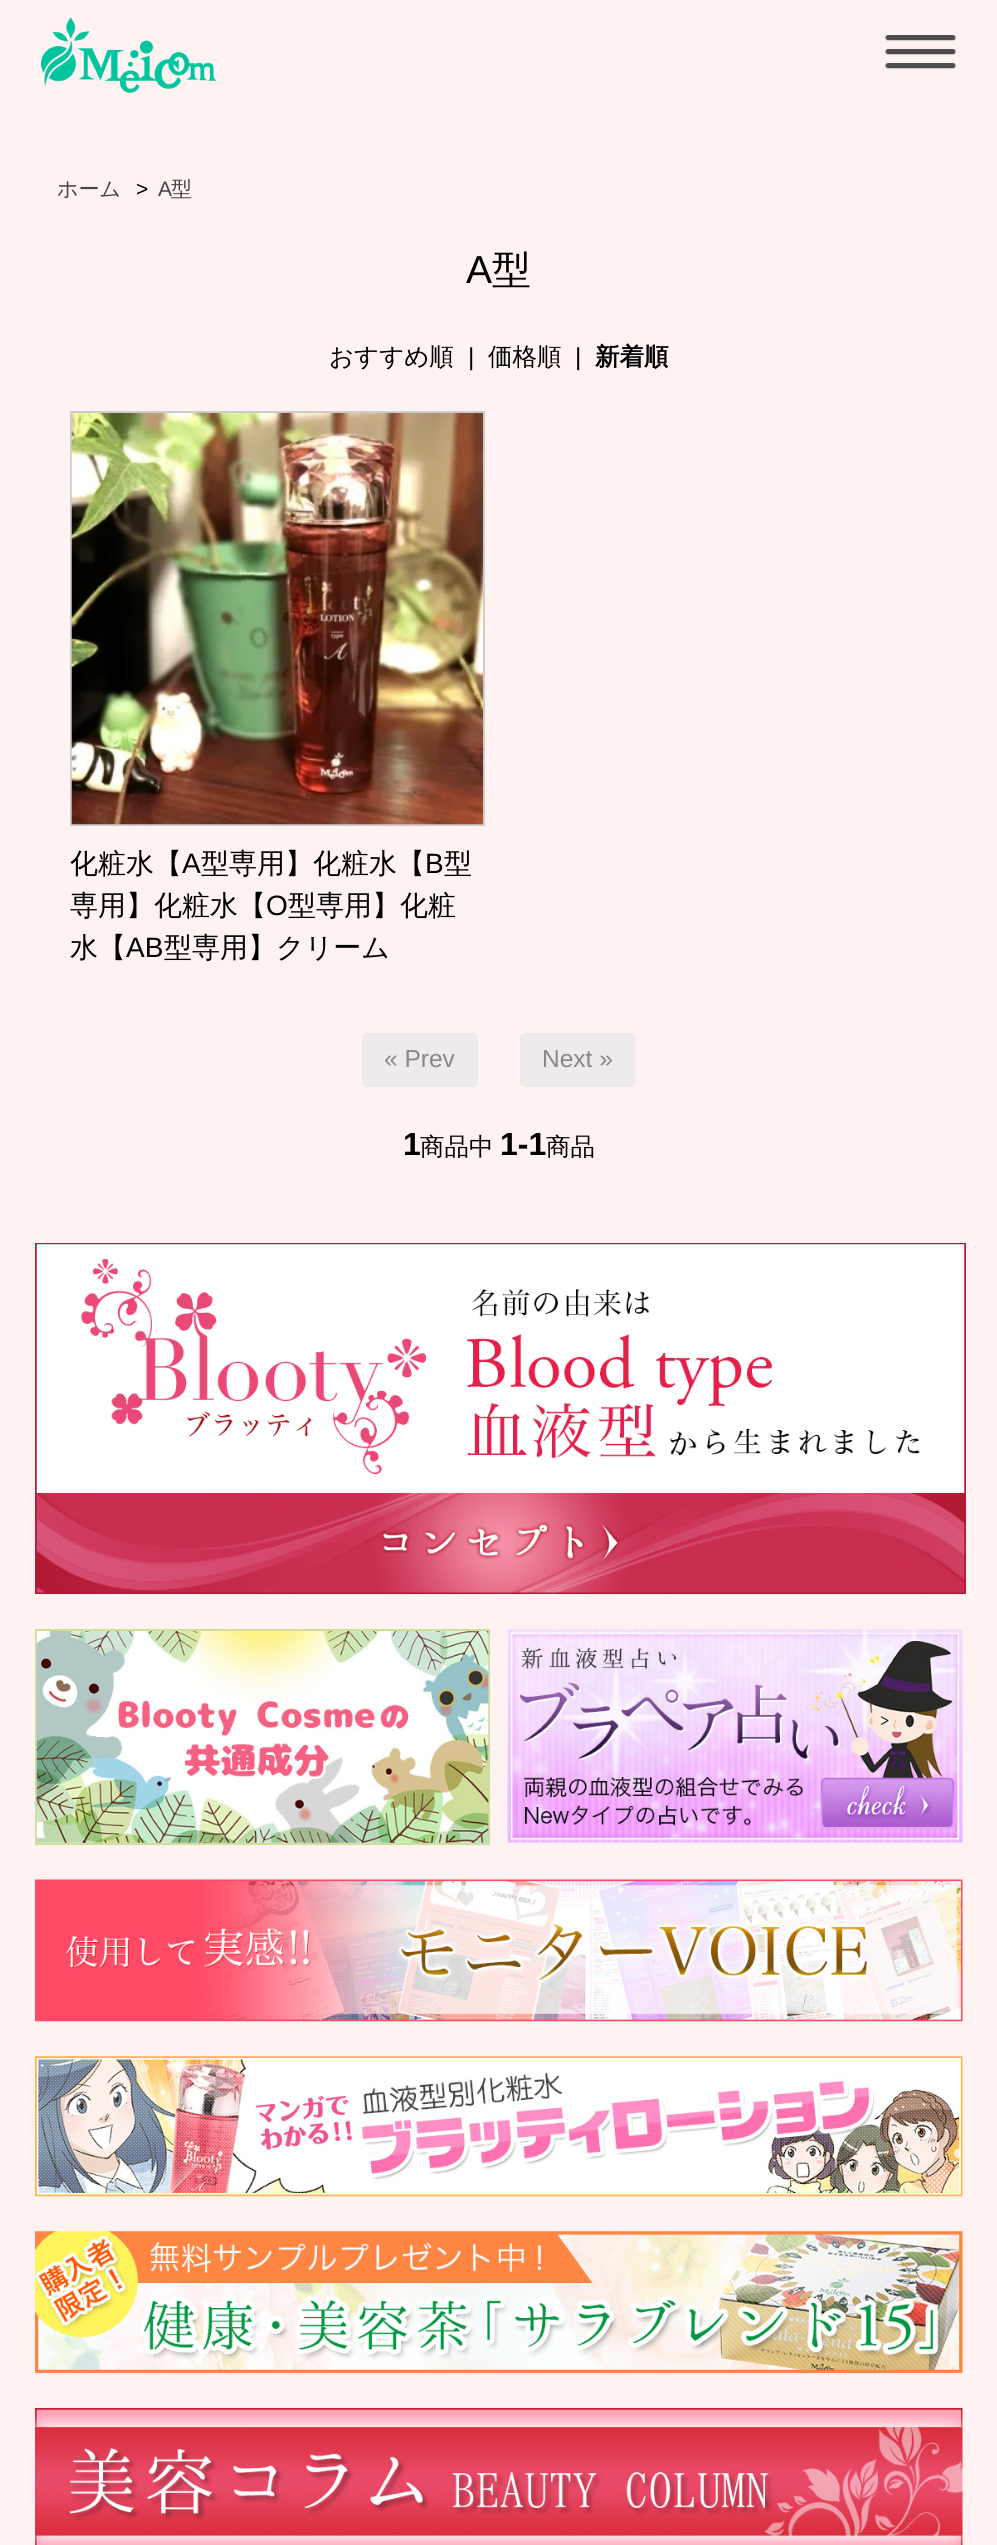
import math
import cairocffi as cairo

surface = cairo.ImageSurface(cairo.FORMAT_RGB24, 997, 2545)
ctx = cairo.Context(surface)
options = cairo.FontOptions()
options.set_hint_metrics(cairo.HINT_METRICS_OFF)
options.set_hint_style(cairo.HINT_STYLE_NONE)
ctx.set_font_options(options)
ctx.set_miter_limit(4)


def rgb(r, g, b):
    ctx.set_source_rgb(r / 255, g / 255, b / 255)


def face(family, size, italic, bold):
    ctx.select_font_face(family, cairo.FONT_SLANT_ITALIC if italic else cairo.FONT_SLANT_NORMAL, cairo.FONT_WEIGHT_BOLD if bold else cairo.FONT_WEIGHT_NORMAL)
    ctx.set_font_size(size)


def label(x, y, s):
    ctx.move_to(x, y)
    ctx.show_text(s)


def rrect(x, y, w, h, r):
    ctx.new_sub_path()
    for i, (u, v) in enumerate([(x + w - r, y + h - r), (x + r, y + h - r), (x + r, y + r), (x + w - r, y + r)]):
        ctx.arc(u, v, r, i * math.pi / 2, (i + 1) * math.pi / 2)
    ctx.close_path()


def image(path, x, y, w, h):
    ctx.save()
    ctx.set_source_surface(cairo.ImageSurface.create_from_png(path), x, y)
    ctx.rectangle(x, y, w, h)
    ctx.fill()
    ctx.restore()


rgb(255, 242, 243)
ctx.paint()
image('image0.png', 41, 17, 176, 76)
image('image1.png', 885, 35, 71, 34)
face('WenQuanYi Zen Hei Medium', 21, 0, 0)
rgb(68, 68, 68)
label(57, 196, 'ホーム')
face('Liberation Sans', 21, 0, 0)
rgb(0, 0, 0)
label(136, 196, '>')
rgb(68, 68, 68)
label(158, 196, 'A')
face('WenQuanYi Zen Hei Medium', 21, 0, 0)
label(171, 196, '型')
face('Liberation Sans', 39, 0, 0)
rgb(0, 0, 0)
label(466, 283, 'A')
face('WenQuanYi Zen Hei Medium', 39, 0, 0)
label(492, 283, '型')
face('WenQuanYi Zen Hei Medium', 24.5, 0, 0)
label(329, 365, 'おすすめ順')
face('Liberation Sans', 24.5, 0, 0)
label(468, 365, '|')
face('WenQuanYi Zen Hei Medium', 24.5, 0, 0)
label(488, 365, '価格順')
face('Liberation Sans', 24.5, 0, 0)
label(575, 365, '|')
face('WenQuanYi Zen Hei', 24.5, 0, 1)
label(595, 365, '新着順')
ctx.rectangle(71, 412, 413, 413)
rgb(204, 204, 204)
ctx.stroke()
image('image2.png', 71, 413, 412, 412)
face('WenQuanYi Zen Hei Medium', 28, 0, 0)
rgb(0, 0, 0)
label(70, 873, '化粧水【')
face('Liberation Sans', 28, 0, 0)
label(182, 873, 'A')
face('WenQuanYi Zen Hei Medium', 28, 0, 0)
label(201, 873, '型専用】化粧水【')
face('Liberation Sans', 28, 0, 0)
label(425, 873, 'B')
face('WenQuanYi Zen Hei Medium', 28, 0, 0)
label(444, 873, '型')
label(70, 915, '専用】化粧水【')
face('Liberation Sans', 28, 0, 0)
label(266, 915, 'O')
face('WenQuanYi Zen Hei Medium', 28, 0, 0)
label(288, 915, '型専用】化粧')
label(70, 957, '水【')
face('Liberation Sans', 28, 0, 0)
label(126, 957, 'AB')
face('WenQuanYi Zen Hei Medium', 28, 0, 0)
label(164, 957, '型専用】クリーム')
rgb(239, 234, 235)
rrect(363, 1034, 114, 52, 4)
ctx.fill_preserve()
ctx.stroke()
face('Liberation Sans', 24.5, 0, 0)
rgb(139, 135, 135)
label(384, 1067, '« Prev')
rgb(239, 234, 235)
rrect(521, 1034, 113, 52, 4)
ctx.fill_preserve()
ctx.stroke()
rgb(139, 135, 135)
label(542, 1067, 'Next »')
face('Liberation Sans', 32, 0, 1)
rgb(0, 0, 0)
label(403, 1155, '1')
face('WenQuanYi Zen Hei Medium', 24.5, 0, 0)
label(420, 1155, '商品中')
face('Liberation Sans', 32, 0, 1)
label(500, 1155, '1-1')
face('WenQuanYi Zen Hei Medium', 24.5, 0, 0)
label(546, 1155, '商品')
ctx.rectangle(36, 1244, 929, 349)
rgb(176, 27, 55)
ctx.stroke()
image('image3.png', 36, 1244, 929, 349)
ctx.rectangle(36, 1630, 453, 214)
rgb(207, 222, 155)
ctx.stroke()
image('image4.png', 36, 1631, 453, 212)
image('image5.png', 507, 1629, 456, 214)
image('image6.png', 35, 1879, 928, 143)
image('image7.png', 35, 2056, 928, 141)
image('image8.png', 35, 2231, 928, 142)
image('image9.png', 35, 2408, 928, 137)
surface.write_to_png('render.png')
